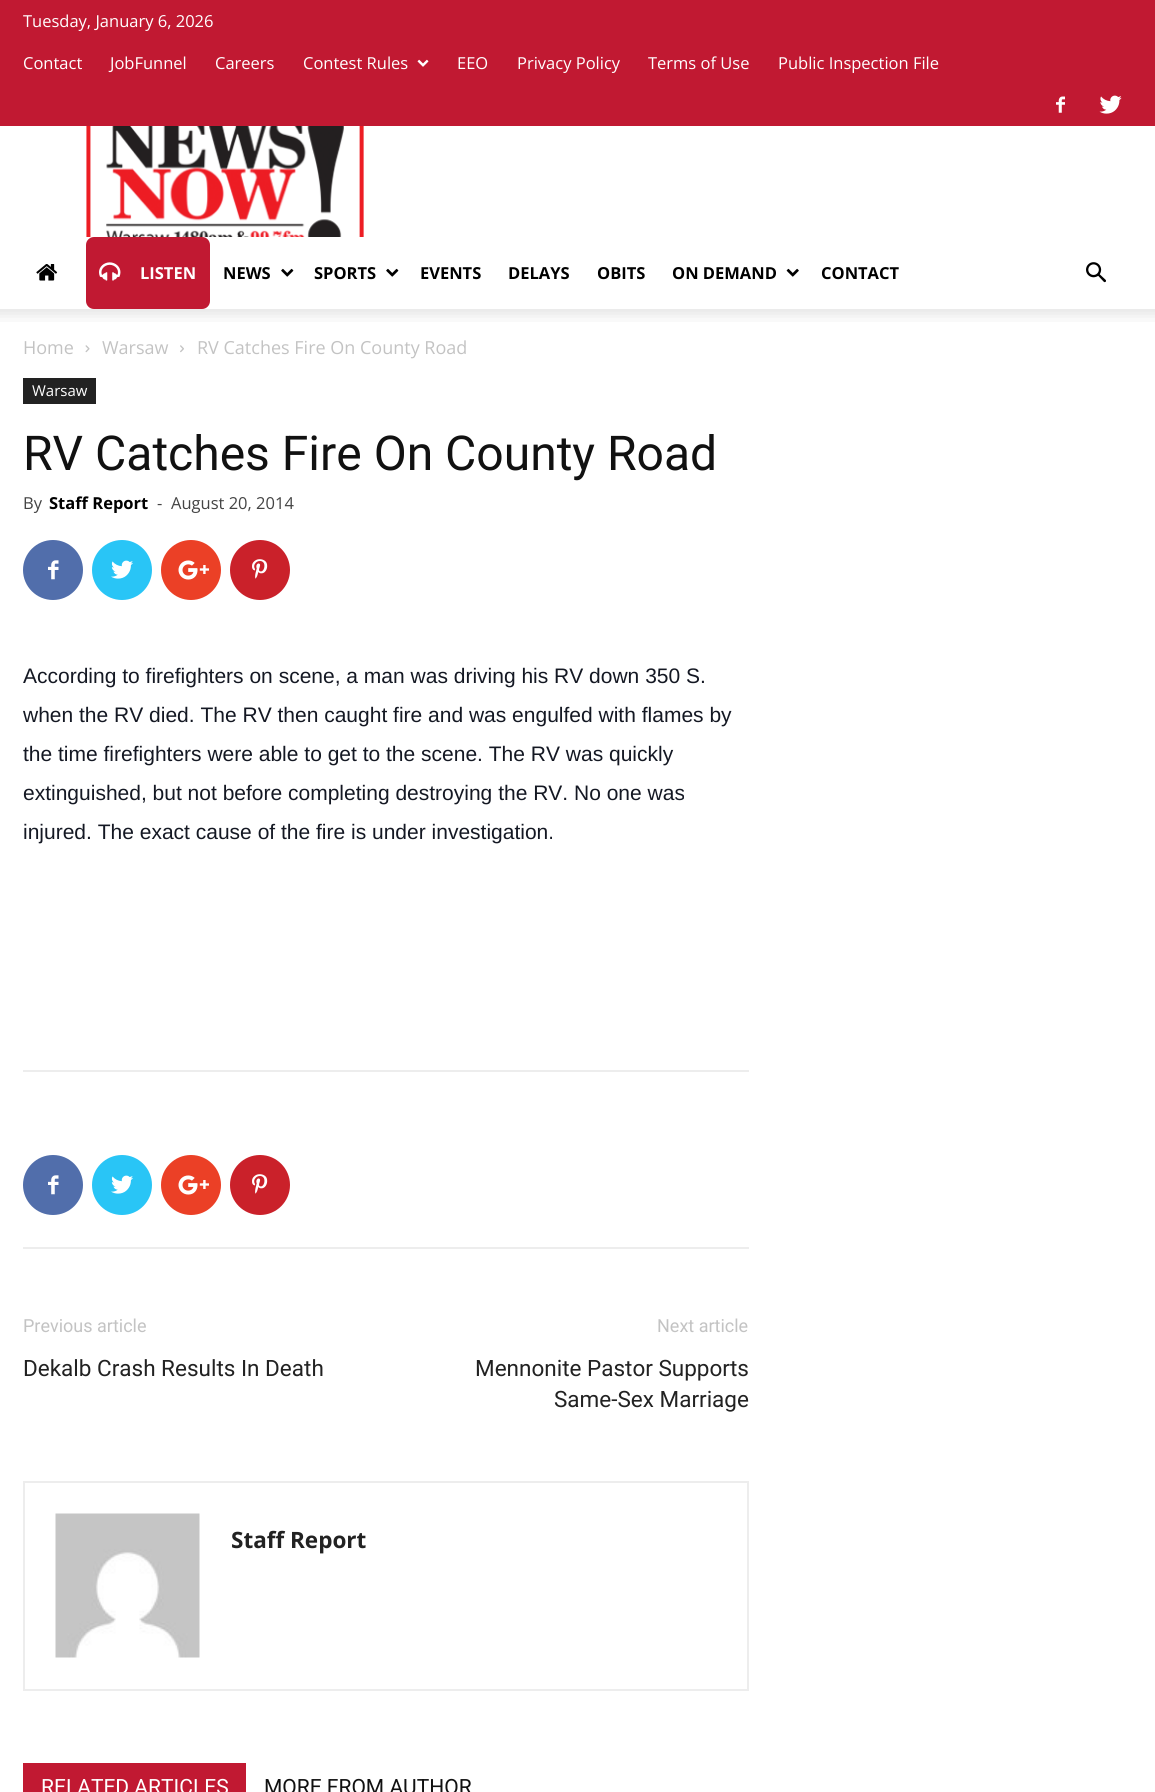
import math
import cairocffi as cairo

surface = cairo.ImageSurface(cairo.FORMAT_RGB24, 1155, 1792)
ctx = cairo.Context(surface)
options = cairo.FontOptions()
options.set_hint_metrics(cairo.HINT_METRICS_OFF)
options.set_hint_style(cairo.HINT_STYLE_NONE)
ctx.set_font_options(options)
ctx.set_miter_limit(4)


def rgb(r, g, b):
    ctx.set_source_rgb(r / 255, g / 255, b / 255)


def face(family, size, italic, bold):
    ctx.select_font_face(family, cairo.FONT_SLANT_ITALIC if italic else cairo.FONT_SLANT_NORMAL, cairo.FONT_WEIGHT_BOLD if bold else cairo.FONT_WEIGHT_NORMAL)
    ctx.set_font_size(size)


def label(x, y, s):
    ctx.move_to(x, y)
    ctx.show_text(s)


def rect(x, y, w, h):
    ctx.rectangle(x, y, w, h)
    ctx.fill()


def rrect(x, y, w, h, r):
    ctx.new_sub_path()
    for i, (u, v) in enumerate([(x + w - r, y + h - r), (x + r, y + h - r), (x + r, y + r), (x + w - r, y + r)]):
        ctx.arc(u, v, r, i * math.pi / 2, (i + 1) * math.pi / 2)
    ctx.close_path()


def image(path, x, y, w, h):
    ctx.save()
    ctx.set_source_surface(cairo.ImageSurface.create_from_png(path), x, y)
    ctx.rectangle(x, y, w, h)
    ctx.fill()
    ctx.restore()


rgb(255, 255, 255)
ctx.paint()
rgb(193, 25, 50)
rect(0, 0, 1155, 126)
face('Open Sans', 16.5, 0, 0)
rgb(255, 255, 255)
label(23, 27, 'Tuesday, January 6, 2026')
label(23, 69, 'Contact')
label(110, 69, 'JobFunnel')
label(215, 69, 'Careers')
label(303, 69, 'Contest Rules')
image('image0.png', 417, 59, 12, 8)
label(457, 69, 'EEO')
label(517, 69, 'Privacy Policy')
label(648, 69, 'Terms of Use')
label(778, 69, 'Public Inspection File')
image('image1.png', 1056, 96, 9, 17)
image('image2.png', 1099, 95, 23, 19)
image('image3.png', 86, 126, 278, 111)
image('image4.png', 36, 264, 22, 17)
rgb(193, 25, 50)
rrect(86, 237, 124, 72, 8)
ctx.fill()
image('image5.png', 99, 262, 22, 19)
face('Open Sans', 16.5, 0, 1)
rgb(255, 255, 255)
label(140, 279, 'LISTEN')
rgb(0, 0, 0)
label(223, 279, 'NEWS')
image('image6.png', 281, 268, 13, 9)
label(314, 279, 'SPORTS')
image('image6.png', 386, 268, 13, 9)
label(420, 279, 'EVENTS')
label(508, 279, 'DELAYS')
label(597, 279, 'OBITS')
label(672, 279, 'ON DEMAND')
image('image7.png', 786, 268, 13, 9)
label(821, 279, 'CONTACT')
image('image8.png', 1086, 262, 20, 21)
image('image9.png', 0, 309, 1155, 13)
face('Open Sans', 18, 0, 0)
rgb(195, 195, 195)
label(23, 354, 'Home')
image('image10.png', 85, 345, 5, 8)
label(102, 354, 'Warsaw')
image('image11.png', 180, 345, 4, 8)
label(197, 354, 'RV Catches Fire On County Road')
rgb(34, 34, 34)
rect(23, 378, 73, 26)
face('Open Sans', 15, 0, 0)
rgb(255, 255, 255)
label(32, 396, 'Warsaw')
face('Roboto', 48, 0, 0)
rgb(17, 17, 17)
label(23, 470, 'RV Catches Fire On County Road')
face('Open Sans', 16.5, 0, 0)
rgb(68, 68, 68)
label(23, 509, 'By')
face('Open Sans', 16.5, 0, 1)
rgb(0, 0, 0)
label(49, 509, 'Staff Report')
face('Open Sans', 16.5, 0, 0)
rgb(68, 68, 68)
label(157, 509, '-')
label(171, 509, 'August 20, 2014')
rgb(81, 110, 171)
ctx.new_path()
ctx.arc(53, 570, 30, 0, 2 * math.pi)
ctx.fill()
image('image12.png', 48, 560, 11, 20)
rgb(41, 197, 246)
ctx.arc(122, 570, 30, 0, 2 * math.pi)
ctx.fill()
image('image13.png', 111, 560, 22, 19)
rgb(235, 64, 38)
ctx.arc(191, 570, 30, 0, 2 * math.pi)
ctx.fill()
image('image14.png', 178, 560, 31, 20)
rgb(202, 33, 42)
ctx.arc(260, 570, 30, 0, 2 * math.pi)
ctx.fill()
image('image15.png', 252, 559, 16, 20)
face('Liberation Sans', 21, 0, 0)
rgb(20, 24, 35)
label(23, 683, 'According to firefighters on scene, a man was driving his RV down 350 S.')
label(23, 722, 'when the RV died. The RV then caught fire and was engulfed with flames by')
label(23, 761, 'the time firefighters were able to get to the scene. The RV was quickly')
label(23, 800, 'extinguished, but not before completing destroying the RV. No one was')
label(23, 839, 'injured. The exact cause of the fire is under investigation.')
rgb(237, 237, 237)
rect(23, 1070, 726, 2)
rect(23, 1247, 726, 2)
rgb(81, 110, 171)
ctx.new_path()
ctx.arc(53, 1185, 30, 0, 2 * math.pi)
ctx.fill()
image('image12.png', 48, 1175, 11, 20)
rgb(41, 197, 246)
ctx.arc(122, 1185, 30, 0, 2 * math.pi)
ctx.fill()
image('image13.png', 111, 1175, 22, 19)
rgb(235, 64, 38)
ctx.arc(191, 1185, 30, 0, 2 * math.pi)
ctx.fill()
image('image14.png', 178, 1175, 31, 20)
rgb(202, 33, 42)
ctx.arc(260, 1185, 30, 0, 2 * math.pi)
ctx.fill()
image('image15.png', 252, 1174, 16, 20)
face('Roboto', 18, 0, 0)
rgb(195, 195, 195)
label(23, 1332, 'Previous article')
face('Roboto', 22.5, 0, 0)
rgb(34, 34, 34)
label(23, 1376, 'Dekalb Crash Results In Death')
face('Roboto', 18, 0, 0)
rgb(195, 195, 195)
label(657, 1332, 'Next article')
face('Roboto', 22.5, 0, 0)
rgb(34, 34, 34)
label(475, 1376, 'Mennonite Pastor Supports')
label(554, 1407, 'Same-Sex Marriage')
ctx.rectangle(24, 1482, 724, 208)
rgb(237, 237, 237)
ctx.stroke()
image('image16.png', 55, 1513, 145, 145)
face('Open Sans', 22.5, 0, 1)
rgb(34, 34, 34)
label(231, 1548, 'Staff Report')
rgb(193, 25, 50)
rect(23, 1763, 223, 29)
face('Roboto', 21, 0, 0)
rgb(255, 255, 255)
label(41, 1794, 'RELATED ARTICLES')
rgb(17, 17, 17)
label(264, 1794, 'MORE FROM AUTHOR')
surface.write_to_png('render.png')
